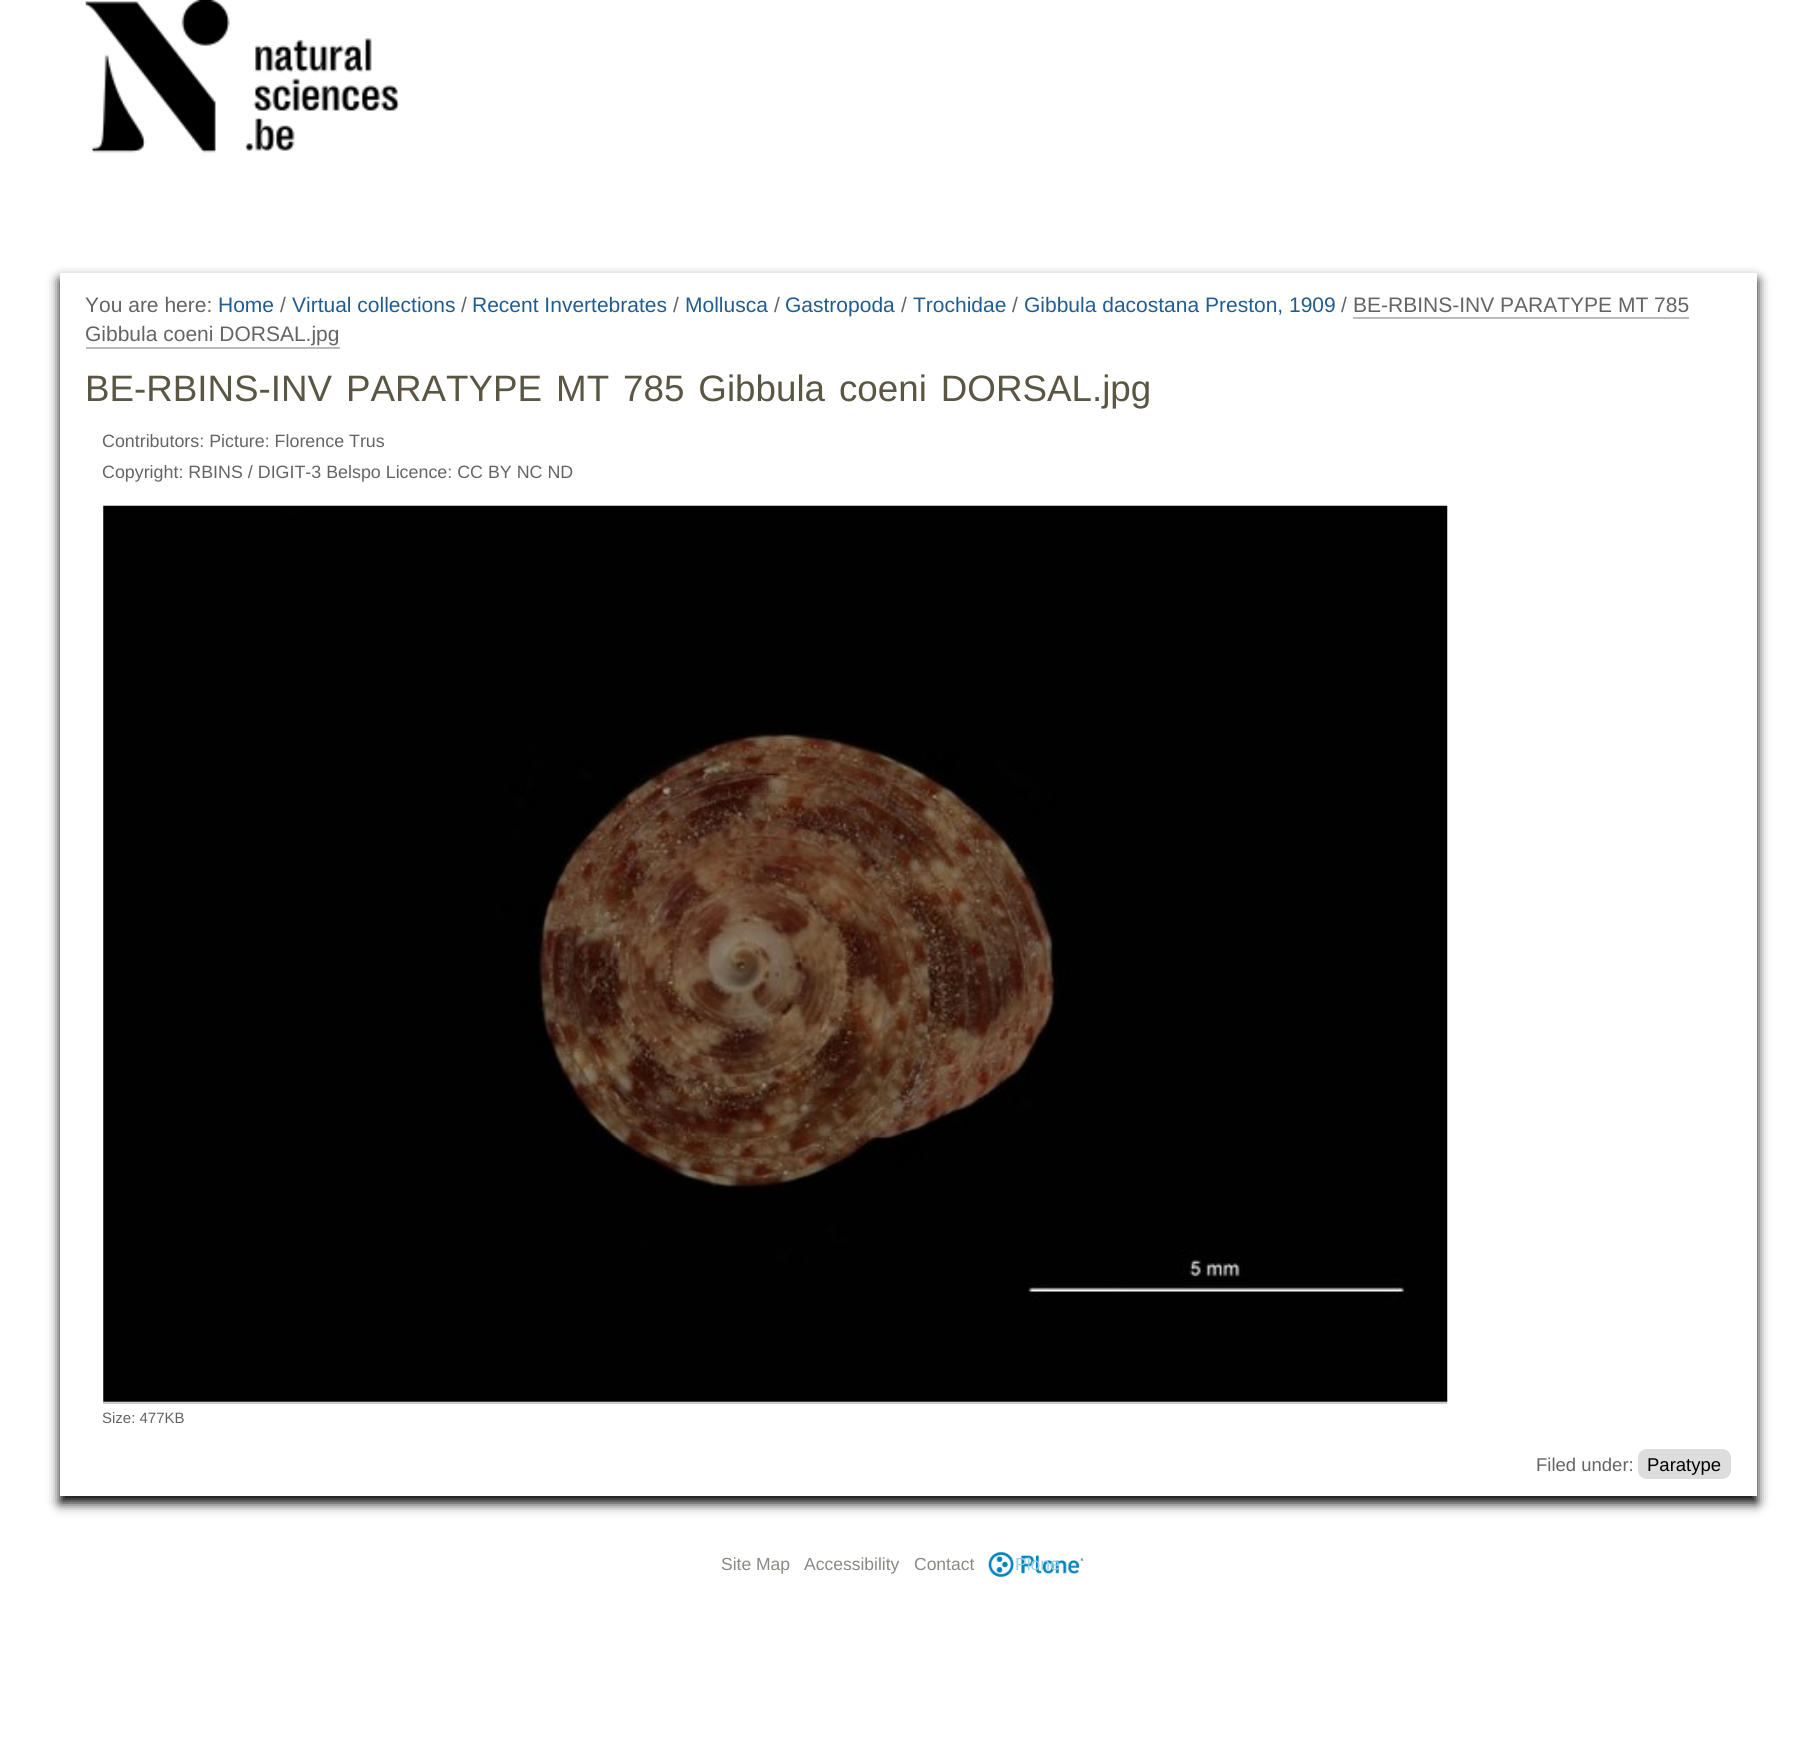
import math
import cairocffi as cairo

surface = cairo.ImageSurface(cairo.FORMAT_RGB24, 1814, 1752)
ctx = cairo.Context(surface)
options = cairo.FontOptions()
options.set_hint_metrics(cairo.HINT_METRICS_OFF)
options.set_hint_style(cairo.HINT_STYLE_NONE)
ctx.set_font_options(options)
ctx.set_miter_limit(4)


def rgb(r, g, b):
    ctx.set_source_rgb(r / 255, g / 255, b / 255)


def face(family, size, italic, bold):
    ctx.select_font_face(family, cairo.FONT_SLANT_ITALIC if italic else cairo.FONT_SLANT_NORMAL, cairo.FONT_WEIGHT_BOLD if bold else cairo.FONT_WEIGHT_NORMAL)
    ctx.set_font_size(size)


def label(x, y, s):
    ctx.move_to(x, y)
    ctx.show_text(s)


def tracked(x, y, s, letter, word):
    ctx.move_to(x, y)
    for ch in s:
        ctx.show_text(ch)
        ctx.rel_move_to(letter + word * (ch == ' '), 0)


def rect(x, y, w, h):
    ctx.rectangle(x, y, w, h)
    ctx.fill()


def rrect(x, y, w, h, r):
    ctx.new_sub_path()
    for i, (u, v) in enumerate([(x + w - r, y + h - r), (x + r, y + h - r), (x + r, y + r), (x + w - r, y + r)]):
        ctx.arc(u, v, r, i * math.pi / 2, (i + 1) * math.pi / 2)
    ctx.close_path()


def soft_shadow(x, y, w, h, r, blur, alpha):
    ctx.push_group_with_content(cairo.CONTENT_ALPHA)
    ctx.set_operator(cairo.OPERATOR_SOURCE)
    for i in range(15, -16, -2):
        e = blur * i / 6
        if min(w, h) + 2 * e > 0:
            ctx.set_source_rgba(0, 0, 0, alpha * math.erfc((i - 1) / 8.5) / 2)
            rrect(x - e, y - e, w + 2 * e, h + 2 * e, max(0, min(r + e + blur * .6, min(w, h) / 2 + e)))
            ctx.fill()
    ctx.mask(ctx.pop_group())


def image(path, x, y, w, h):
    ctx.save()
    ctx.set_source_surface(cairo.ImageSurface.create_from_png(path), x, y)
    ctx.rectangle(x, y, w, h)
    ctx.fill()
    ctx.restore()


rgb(255, 255, 255)
ctx.paint()
image('image0.png', 85, 0, 315, 153)
ctx.save()
ctx.set_fill_rule(cairo.FILL_RULE_EVEN_ODD)
ctx.new_path()
ctx.move_to(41, 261)
ctx.line_to(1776, 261)
ctx.line_to(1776, 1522)
ctx.line_to(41, 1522)
ctx.close_path()
ctx.move_to(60, 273)
ctx.line_to(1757, 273)
ctx.line_to(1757, 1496)
ctx.line_to(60, 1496)
ctx.close_path()
ctx.clip()
rgb(0, 0, 0)
soft_shadow(60, 280, 1697, 1223, 0, 6, 1)
ctx.restore()
face('Liberation Sans', 21, 0, 0)
rgb(99, 100, 102)
label(85, 312, 'You are here:')
rgb(32, 92, 144)
label(218, 312, 'Home')
rgb(99, 100, 102)
label(280, 312, '/')
rgb(32, 92, 144)
label(292, 312, 'Virtual collections')
rgb(99, 100, 102)
label(461, 312, '/')
rgb(32, 92, 144)
label(472, 312, 'Recent Invertebrates')
rgb(99, 100, 102)
label(673, 312, '/')
rgb(32, 92, 144)
label(685, 312, 'Mollusca')
rgb(99, 100, 102)
label(774, 312, '/')
rgb(32, 92, 144)
label(785, 312, 'Gastropoda')
rgb(99, 100, 102)
label(901, 312, '/')
rgb(32, 92, 144)
label(913, 312, 'Trochidae')
rgb(99, 100, 102)
label(1012, 312, '/')
rgb(32, 92, 144)
label(1024, 312, 'Gibbula dacostana Preston, 1909')
rgb(99, 100, 102)
label(1341, 312, '/')
label(1353, 312, 'BE-RBINS-INV PARATYPE MT 785')
rgb(187, 187, 187)
rect(1353, 317, 336, 2)
rgb(99, 100, 102)
label(85, 341, 'Gibbula coeni DORSAL.jpg')
rgb(187, 187, 187)
rect(86, 347, 254, 2)
face('Liberation Sans', 36.75, 0, 0)
rgb(91, 86, 68)
tracked(85, 401, 'BE-RBINS-INV PARATYPE MT 785 Gibbula coeni DORSAL.jpg', 0, 3.75)
face('Liberation Sans', 17.85, 0, 0)
rgb(99, 100, 102)
label(102, 447, 'Contributors: Picture: Florence Trus')
label(102, 478, 'Copyright: RBINS / DIGIT-3 Belspo Licence: CC BY NC ND')
rgb(204, 204, 204)
rect(103, 1402, 1344, 2)
image('image1.png', 103, 505, 1345, 897)
face('Liberation Sans', 15, 0, 0)
rgb(99, 100, 102)
label(102, 1423, 'Size: 477KB')
face('Liberation Sans', 18.5, 0, 0)
label(1536, 1471, 'Filed under:')
rgb(221, 221, 221)
rrect(1638, 1449, 93, 30, 9)
ctx.fill()
rgb(0, 0, 0)
label(1647, 1471, 'Paratype')
face('Liberation Sans', 17.5, 0, 0)
rgb(140, 136, 130)
label(721, 1570, 'Site Map')
label(804, 1570, 'Accessibility')
label(914, 1570, 'Contact')
image('image2.png', 988, 1552, 96, 25)
rgb(157, 207, 229)
label(1015, 1570, 'Plone')
surface.write_to_png('render.png')
